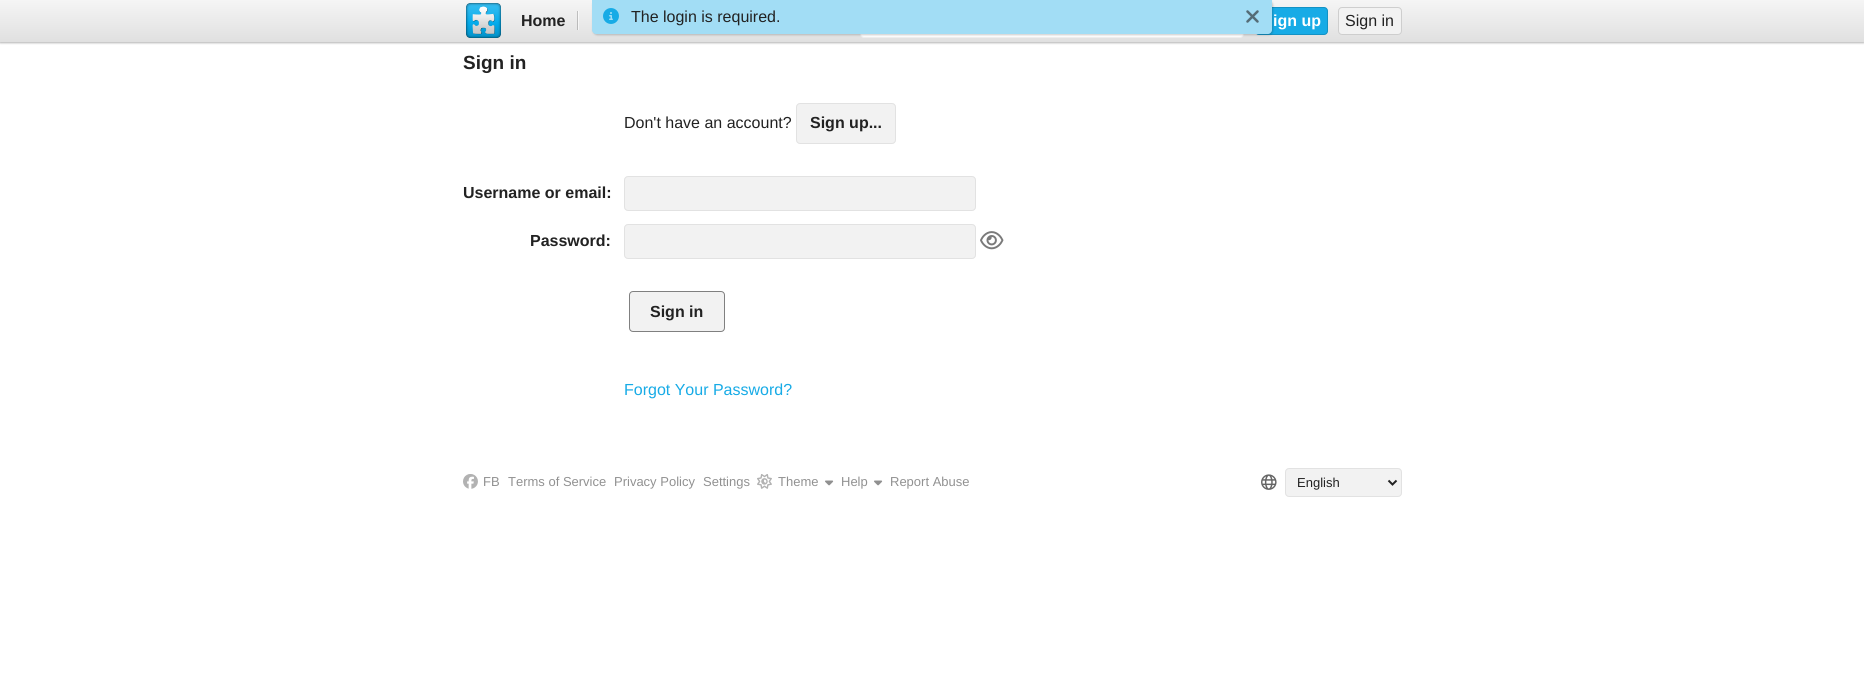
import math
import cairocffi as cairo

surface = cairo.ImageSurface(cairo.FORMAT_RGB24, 1864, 684)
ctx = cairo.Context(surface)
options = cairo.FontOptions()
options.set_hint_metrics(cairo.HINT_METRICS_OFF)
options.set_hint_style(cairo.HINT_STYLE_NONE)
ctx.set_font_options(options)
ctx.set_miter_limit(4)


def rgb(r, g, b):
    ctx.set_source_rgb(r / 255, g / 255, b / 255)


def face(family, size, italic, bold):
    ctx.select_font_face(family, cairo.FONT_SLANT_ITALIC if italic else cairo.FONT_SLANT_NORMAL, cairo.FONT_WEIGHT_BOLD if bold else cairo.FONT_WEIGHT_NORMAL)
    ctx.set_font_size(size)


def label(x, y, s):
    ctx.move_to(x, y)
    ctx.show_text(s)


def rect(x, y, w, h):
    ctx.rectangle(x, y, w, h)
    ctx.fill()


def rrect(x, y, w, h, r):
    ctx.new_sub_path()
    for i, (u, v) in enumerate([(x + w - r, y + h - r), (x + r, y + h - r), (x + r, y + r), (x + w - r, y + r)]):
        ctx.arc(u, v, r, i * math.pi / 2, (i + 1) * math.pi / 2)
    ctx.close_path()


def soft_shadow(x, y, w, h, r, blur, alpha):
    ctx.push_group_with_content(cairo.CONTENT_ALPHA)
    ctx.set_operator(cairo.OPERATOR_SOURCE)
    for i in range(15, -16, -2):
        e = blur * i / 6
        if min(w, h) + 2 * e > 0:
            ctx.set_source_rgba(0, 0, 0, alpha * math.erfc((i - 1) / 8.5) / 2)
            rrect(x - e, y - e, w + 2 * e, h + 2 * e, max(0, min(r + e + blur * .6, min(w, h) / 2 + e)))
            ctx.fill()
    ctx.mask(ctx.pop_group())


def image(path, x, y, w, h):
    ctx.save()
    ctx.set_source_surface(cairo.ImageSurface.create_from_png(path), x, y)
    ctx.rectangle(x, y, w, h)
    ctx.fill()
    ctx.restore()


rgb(255, 255, 255)
ctx.paint()
rgb(0, 0, 0)
soft_shadow(0, 1, 1864, 42, 0, 1, 0.3)
gradient = cairo.LinearGradient(932, 0, 932, 42)
gradient.add_color_stop_rgba(0, 0.961, 0.961, 0.961, 1)
gradient.add_color_stop_rgba(1, 0.878, 0.878, 0.878, 1)
ctx.set_source(gradient)
rect(0, 0, 1864, 42)
rgb(255, 255, 255)
rrect(860, 3, 384, 35, 4)
ctx.fill()
rrect(860.5, 3.5, 383, 34, 3.5)
ctx.set_source_rgba(0, 0, 0, 0.07)
ctx.set_line_width(1)
ctx.stroke()
rgb(23, 171, 230)
rrect(1255, 7, 73, 28, 4)
ctx.fill()
rrect(1255.5, 7.5, 72, 27, 3.5)
ctx.set_source_rgba(0, 0, 0, 0.15)
ctx.stroke()
rgb(0, 0, 0)
soft_shadow(593, 1, 680, 34, 4, 1, 0.2)
rgb(162, 221, 245)
ctx.new_path()
ctx.move_to(592, 0)
ctx.line_to(1272, 0)
ctx.line_to(1272, 30)
ctx.curve_to(1272, 32, 1270, 34, 1268, 34)
ctx.line_to(596, 34)
ctx.curve_to(594, 34, 592, 32, 592, 30)
ctx.close_path()
ctx.fill()
image('image0.png', 603, 8, 16, 16)
face('Liberation Sans', 16, 0, 0)
rgb(34, 34, 34)
label(631, 22, 'The login is required.')
image('image1.png', 1246, 10, 13, 13)
gradient = cairo.LinearGradient(932, 0, 932, 42)
gradient.add_color_stop_rgba(0, 0.769, 0.769, 0.769, 1)
gradient.add_color_stop_rgba(1, 0.702, 0.702, 0.702, 1)
ctx.set_source(gradient)
rect(577, 11, 1, 19)
gradient = cairo.LinearGradient(932, 0, 932, 42)
gradient.add_color_stop_rgba(0, 0.984, 0.984, 0.984, 1)
gradient.add_color_stop_rgba(1, 0.953, 0.953, 0.953, 1)
ctx.set_source(gradient)
rect(578, 11, 1, 19)
image('image2.png', 466, 3, 35, 35)
face('Liberation Sans', 16, 0, 1)
rgb(34, 34, 34)
label(521, 26, 'Home')
rgb(255, 255, 255)
label(1273, 26, 'ign up')
rgb(242, 242, 242)
rrect(1338, 7, 64, 28, 4)
ctx.fill()
rrect(1338.5, 7.5, 63, 27, 3.5)
ctx.set_source_rgba(0, 0, 0, 0.15)
ctx.stroke()
face('Liberation Sans', 16, 0, 0)
rgb(34, 34, 34)
label(1345, 26, 'Sign in')
face('Liberation Sans', 19, 0, 1)
label(463, 69, 'Sign in')
face('Liberation Sans', 16, 0, 0)
label(624, 128, 'Don\'t have an account?')
rgb(242, 242, 242)
rrect(796, 103, 100, 41, 4)
ctx.fill()
rrect(796.5, 103.5, 99, 40, 3.5)
ctx.set_source_rgba(0, 0, 0, 0.07)
ctx.stroke()
face('Liberation Sans', 16, 0, 1)
rgb(34, 34, 34)
label(810, 128, 'Sign up...')
label(463, 198, 'Username or email:')
rgb(242, 242, 242)
rrect(624, 176, 352, 35, 4)
ctx.fill()
rrect(624.5, 176.5, 351, 34, 3.5)
ctx.set_source_rgba(0, 0, 0, 0.07)
ctx.stroke()
rgb(34, 34, 34)
label(530, 246, 'Password:')
rgb(242, 242, 242)
rrect(624, 224, 352, 35, 4)
ctx.fill()
rrect(624.5, 224.5, 351, 34, 3.5)
ctx.set_source_rgba(0, 0, 0, 0.07)
ctx.stroke()
image('image3.png', 980, 231, 24, 19)
rgb(242, 242, 242)
rrect(629, 291, 96, 41, 4)
ctx.fill()
rrect(629.5, 291.5, 95, 40, 3.5)
ctx.set_source_rgba(0, 0, 0, 0.47)
ctx.stroke()
rgb(34, 34, 34)
label(650, 317, 'Sign in')
face('Liberation Sans', 16, 0, 0)
rgb(23, 171, 230)
label(624, 395, 'Forgot Your Password?')
image('image4.png', 463, 474, 15, 15)
face('Liberation Sans', 13, 0, 0)
rgb(145, 145, 145)
label(483, 486, 'FB')
label(508, 486, 'Terms of Service')
label(614, 486, 'Privacy Policy')
label(703, 486, 'Settings')
image('image5.png', 757, 474, 15, 15)
label(778, 486, 'Theme')
image('image6.png', 825, 480, 9, 6)
label(841, 486, 'Help')
image('image6.png', 874, 480, 9, 6)
label(890, 486, 'Report Abuse')
image('image7.png', 1261, 474, 16, 16)
rgb(242, 242, 242)
rrect(1285, 468, 117, 29, 4)
ctx.fill()
rrect(1285.5, 468.5, 116, 28, 3.5)
ctx.set_source_rgba(0, 0, 0, 0.07)
ctx.stroke()
ctx.new_path()
ctx.move_to(1388.5, 480.5)
ctx.line_to(1392.5, 484.5)
ctx.line_to(1396.5, 480.5)
rgb(34, 34, 34)
ctx.set_line_width(2)
ctx.stroke()
label(1297, 487, 'English')
surface.write_to_png('render.png')
